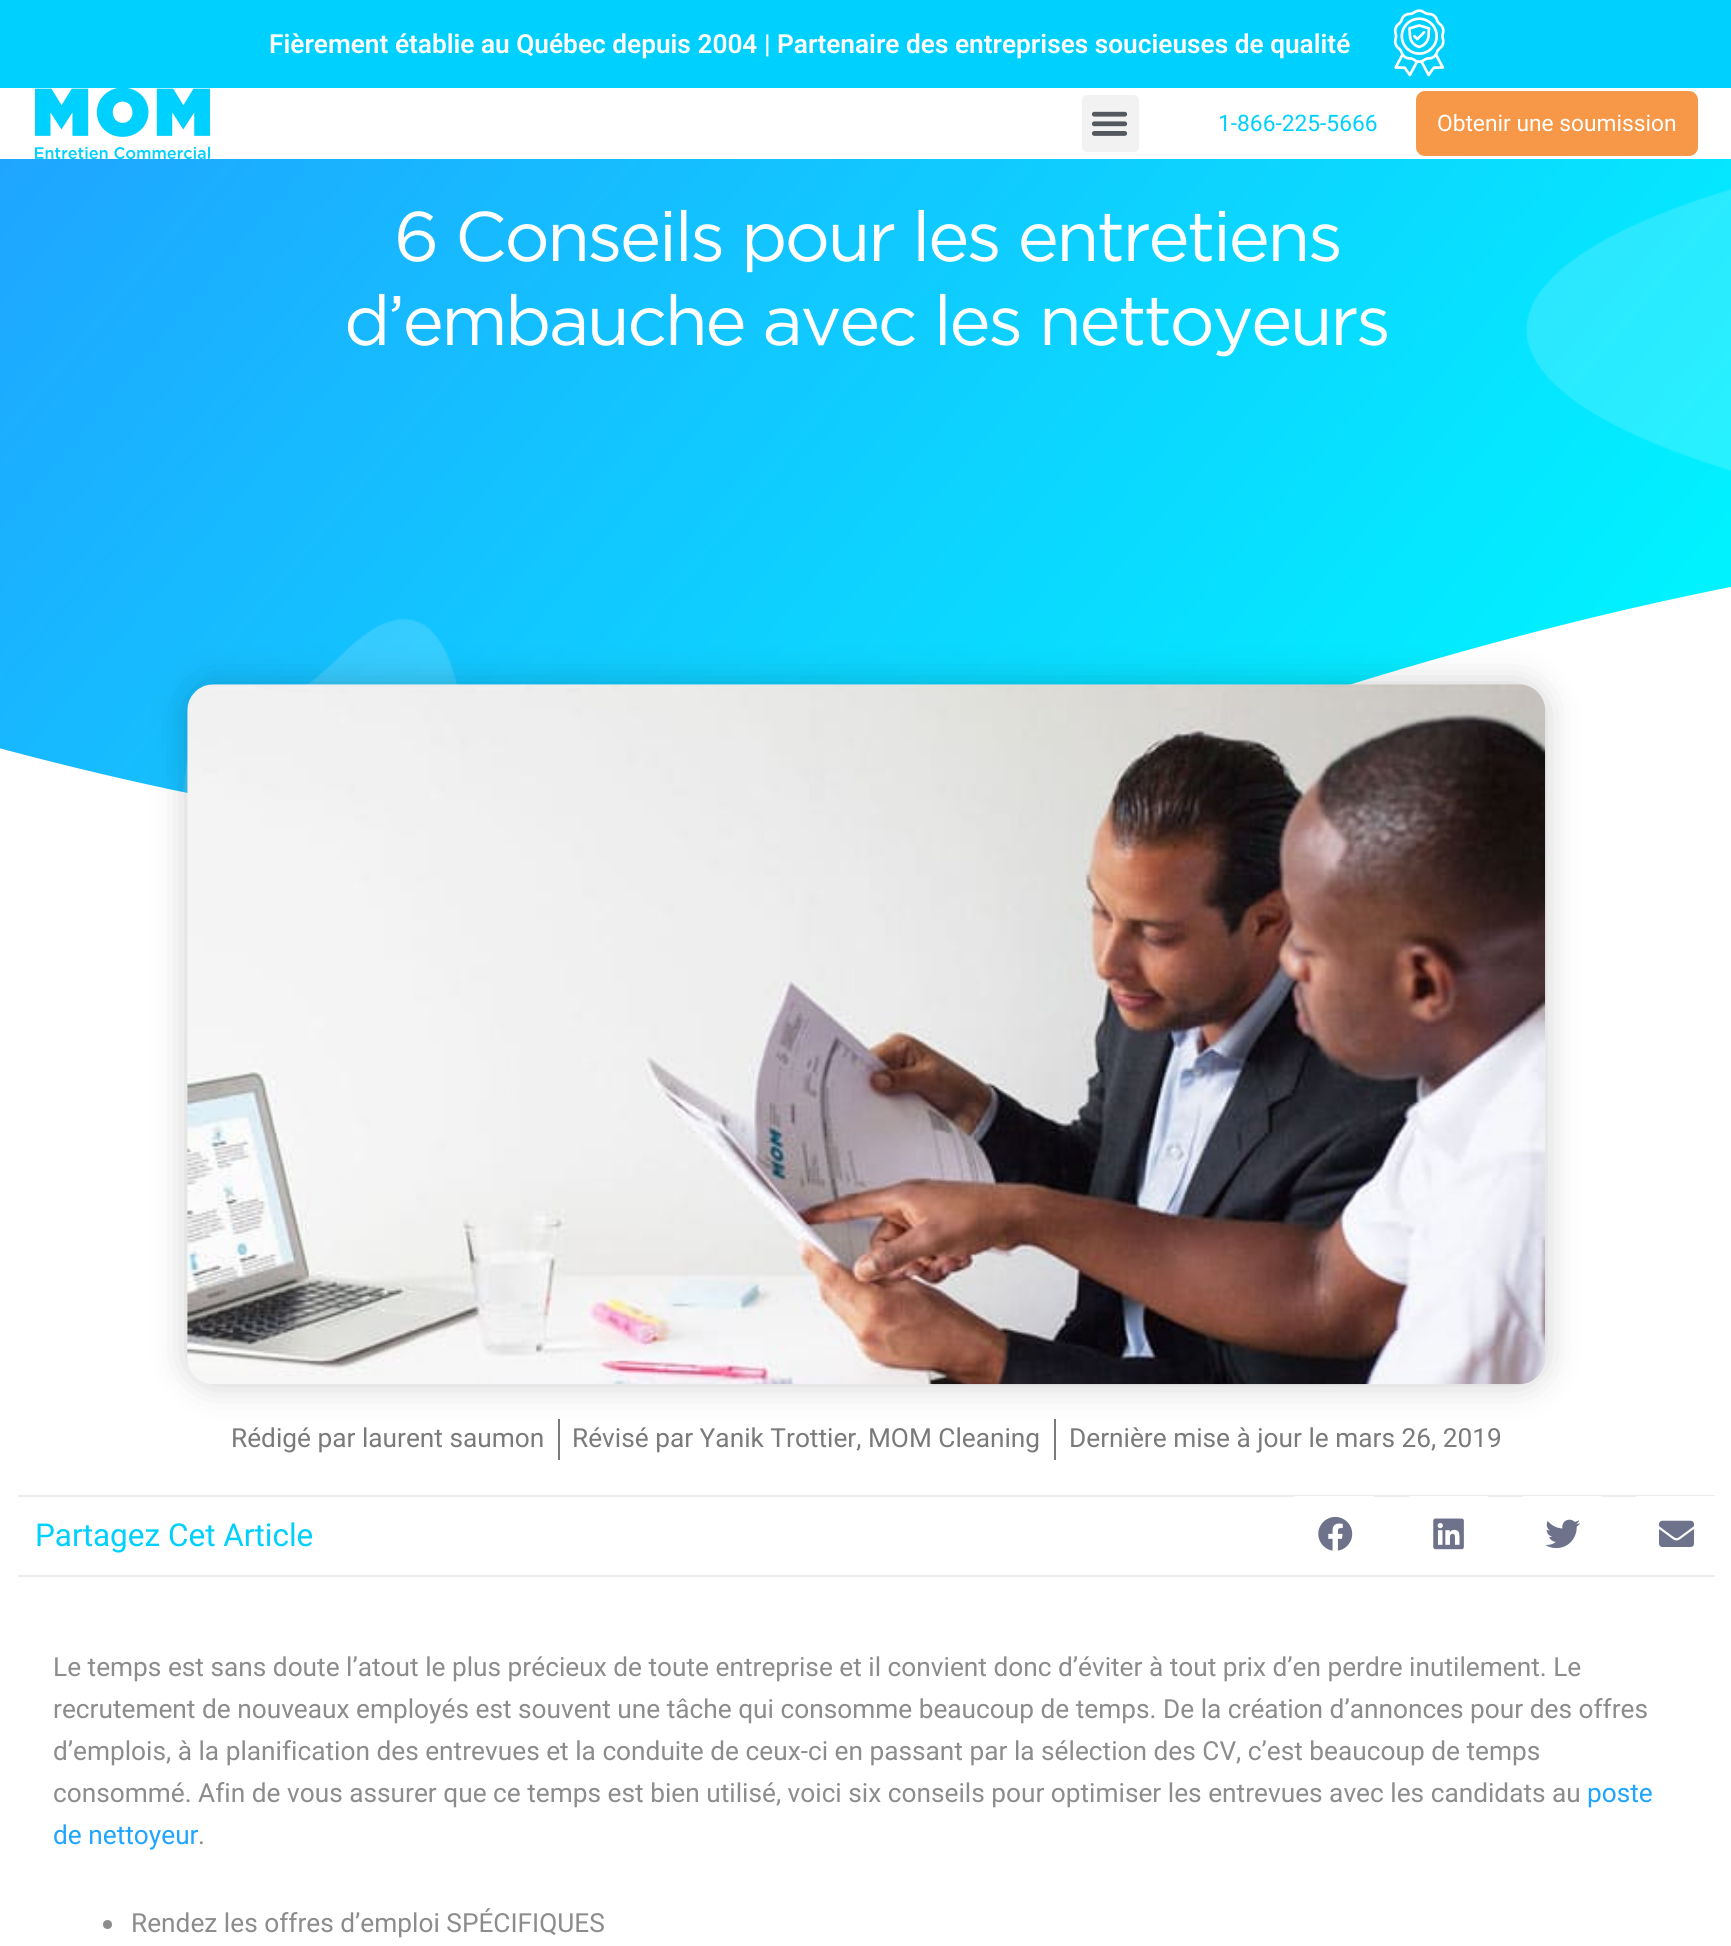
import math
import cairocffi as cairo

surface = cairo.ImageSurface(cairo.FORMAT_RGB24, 1731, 1946)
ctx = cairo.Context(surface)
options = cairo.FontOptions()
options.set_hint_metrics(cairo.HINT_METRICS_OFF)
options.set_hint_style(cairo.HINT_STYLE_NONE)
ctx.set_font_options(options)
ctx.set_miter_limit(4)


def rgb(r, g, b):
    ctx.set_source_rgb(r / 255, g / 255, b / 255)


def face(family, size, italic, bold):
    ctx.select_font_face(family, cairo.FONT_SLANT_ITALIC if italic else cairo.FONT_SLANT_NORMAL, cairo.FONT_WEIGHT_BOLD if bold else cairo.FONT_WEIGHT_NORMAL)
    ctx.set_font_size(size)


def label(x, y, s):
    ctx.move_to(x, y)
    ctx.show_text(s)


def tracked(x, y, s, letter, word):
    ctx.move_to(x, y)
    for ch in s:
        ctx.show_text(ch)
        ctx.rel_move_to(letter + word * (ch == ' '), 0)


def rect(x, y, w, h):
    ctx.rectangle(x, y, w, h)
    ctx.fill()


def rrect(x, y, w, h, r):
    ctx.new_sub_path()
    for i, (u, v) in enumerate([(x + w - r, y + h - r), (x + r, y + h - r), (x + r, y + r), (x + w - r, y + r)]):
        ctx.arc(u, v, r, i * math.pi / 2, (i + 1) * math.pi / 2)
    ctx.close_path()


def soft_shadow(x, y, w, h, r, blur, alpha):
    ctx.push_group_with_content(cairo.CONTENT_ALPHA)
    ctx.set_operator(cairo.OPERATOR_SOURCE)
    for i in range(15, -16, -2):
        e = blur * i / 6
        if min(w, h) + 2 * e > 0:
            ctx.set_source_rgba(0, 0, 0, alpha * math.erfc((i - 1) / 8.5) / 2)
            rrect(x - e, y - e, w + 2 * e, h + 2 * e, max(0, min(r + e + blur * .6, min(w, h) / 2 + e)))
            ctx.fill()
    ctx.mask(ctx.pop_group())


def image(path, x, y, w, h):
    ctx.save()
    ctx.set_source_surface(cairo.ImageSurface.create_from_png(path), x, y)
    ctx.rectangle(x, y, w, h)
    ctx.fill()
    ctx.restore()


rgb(255, 255, 255)
ctx.paint()
rgb(0, 208, 253)
rect(0, 0, 1731, 88)
face('Roboto SemiBold', 26.25, 0, 0)
rgb(255, 255, 255)
label(269, 53, 'Fièrement établie au Québec depuis 2004 | Partenaire des entreprises soucieuses de qualité')
image('image0.png', 1393, 9, 52, 68)
image('image1.png', 35, 88, 175, 71)
rgb(242, 242, 242)
rrect(1082, 95, 57, 57, 5)
ctx.fill()
image('image2.png', 1091, 111, 37, 25)
face('Roboto', 22.75, 0, 0)
rgb(0, 208, 253)
label(1218, 131, '1-866-225-5666')
rgb(247, 152, 72)
rrect(1416, 91, 282, 65, 9)
ctx.fill()
rgb(255, 255, 255)
label(1437, 131, 'Obtenir une soumission')
gradient = cairo.LinearGradient(186, -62, 1547, 1080)
gradient.add_color_stop_rgba(0, 0.122, 0.647, 1, 1)
gradient.add_color_stop_rgba(0.89, 0, 0.949, 1, 1)
ctx.set_source(gradient)
rect(0, 159, 1731, 635)
image('image3.png', 183, 188, 1548, 606)
face('Gotham', 70, 0, 0)
rgb(255, 255, 255)
tracked(394, 261, '6 Conseils pour les entretiens', -2.6, 0)
tracked(344, 345, 'd’embauche avec les nettoyeurs', -2.6, 0)
ctx.new_path()
ctx.move_to(514, 838)
ctx.curve_to(616, 847, 746, 837, 855, 820)
ctx.curve_to(961, 804, 1174, 740, 1307, 698)
ctx.curve_to(1649, 589, 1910, 547, 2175, 529)
ctx.curve_to(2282, 522, 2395, 517, 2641, 537)
ctx.curve_to(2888, 558, 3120, 625, 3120, 625)
ctx.line_to(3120, 861)
ctx.line_to(-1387, 861)
ctx.line_to(-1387, 757)
ctx.curve_to(-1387, 757, -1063, 646, -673, 653)
ctx.curve_to(-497, 655, -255, 676, -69, 729)
ctx.curve_to(26, 757, 166, 792, 290, 812)
ctx.curve_to(412, 834, 468, 835, 514, 838)
ctx.close_path()
ctx.fill()
rgb(0, 0, 0)
soft_shadow(187, 684, 1358, 700, 26, 17.5, 0.2)
image('image4.png', 187, 684, 1359, 701)
face('Roboto', 26.25, 0, 0)
rgb(122, 122, 122)
label(231, 1447, 'Rédigé par laurent saumon')
rect(558, 1419, 2, 41)
label(572, 1447, 'Révisé par Yanik Trottier, MOM Cleaning')
rect(1054, 1419, 2, 41)
label(1069, 1447, 'Dernière mise à jour le mars 26, 2019')
rgb(236, 237, 239)
rect(18, 1495, 1697, 2)
rect(18, 1575, 1697, 2)
face('Roboto', 31.5, 0, 0)
rgb(0, 208, 253)
label(35, 1546, 'Partagez Cet Article')
rgb(255, 255, 255)
rect(1295, 1496, 79, 1)
image('image5.png', 1318, 1516, 35, 35)
rect(1409, 1496, 79, 1)
image('image6.png', 1433, 1518, 31, 32)
rect(1523, 1496, 78, 1)
image('image7.png', 1545, 1519, 35, 30)
rect(1636, 1496, 79, 1)
image('image8.png', 1659, 1520, 35, 27)
face('Roboto', 26.25, 0, 0)
rgb(140, 140, 140)
label(53, 1676, 'Le temps est sans doute l’atout le plus précieux de toute entreprise et il convient donc d’éviter à tout prix d’en perdre inutilement. Le')
label(53, 1718, 'recrutement de nouveaux employés est souvent une tâche qui consomme beaucoup de temps. De la création d’annonces pour des offres')
label(53, 1760, 'd’emplois, à la planification des entrevues et la conduite de ceux-ci en passant par la sélection des CV, c’est beaucoup de temps')
label(53, 1802, 'consommé. Afin de vous assurer que ce temps est bien utilisé, voici six conseils pour optimiser les entrevues avec les candidats au')
rgb(31, 165, 255)
label(1587, 1802, 'poste')
label(53, 1844, 'de nettoyeur')
rgb(140, 140, 140)
label(198, 1844, '.')
ctx.new_path()
ctx.arc(107.5, 1924.5, 4.5, 0, 2 * math.pi)
ctx.fill()
label(131, 1932, 'Rendez les offres d’emploi SPÉCIFIQUES')
surface.write_to_png('render.png')
